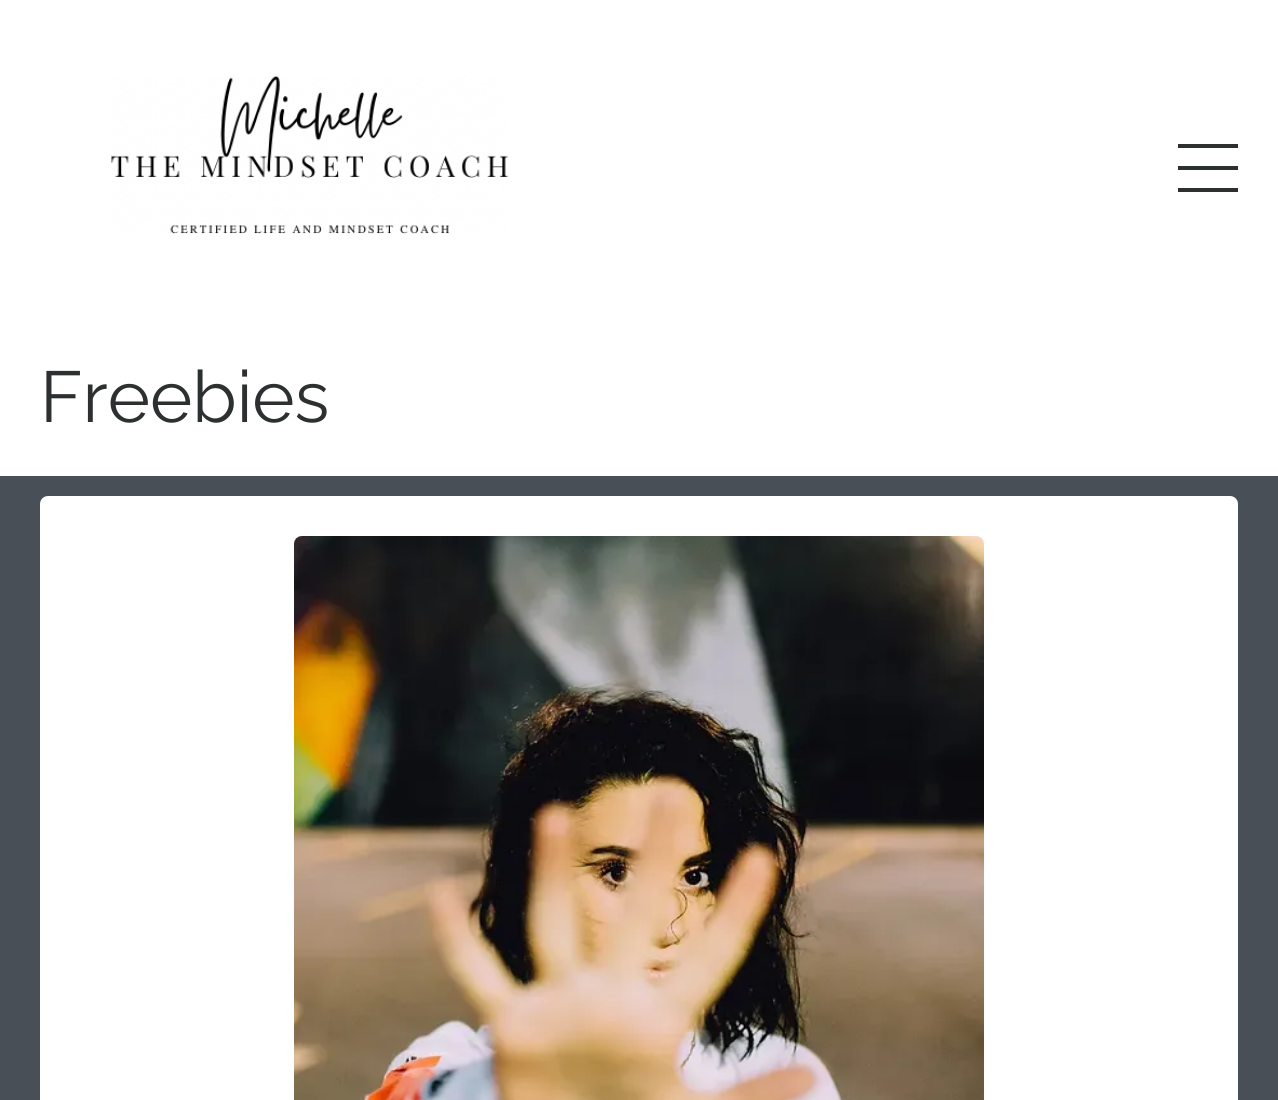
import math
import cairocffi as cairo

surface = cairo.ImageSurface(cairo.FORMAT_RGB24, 1278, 1100)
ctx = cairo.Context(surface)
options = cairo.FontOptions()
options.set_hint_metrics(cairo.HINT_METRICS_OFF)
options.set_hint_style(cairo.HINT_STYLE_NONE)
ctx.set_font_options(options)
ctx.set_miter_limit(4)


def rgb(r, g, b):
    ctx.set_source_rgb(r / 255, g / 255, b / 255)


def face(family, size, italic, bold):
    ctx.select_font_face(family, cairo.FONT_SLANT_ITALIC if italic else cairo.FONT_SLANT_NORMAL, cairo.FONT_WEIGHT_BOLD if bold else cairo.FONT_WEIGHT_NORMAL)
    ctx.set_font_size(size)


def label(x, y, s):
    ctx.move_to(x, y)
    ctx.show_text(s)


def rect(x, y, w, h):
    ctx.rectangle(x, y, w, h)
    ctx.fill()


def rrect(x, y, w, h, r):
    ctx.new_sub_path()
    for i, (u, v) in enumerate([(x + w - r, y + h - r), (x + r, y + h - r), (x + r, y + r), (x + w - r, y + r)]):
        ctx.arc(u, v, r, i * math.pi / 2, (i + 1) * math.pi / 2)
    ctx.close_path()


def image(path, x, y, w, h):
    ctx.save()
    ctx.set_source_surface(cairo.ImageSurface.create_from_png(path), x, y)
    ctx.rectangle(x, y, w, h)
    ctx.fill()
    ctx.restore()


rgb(255, 255, 255)
ctx.paint()
image('image0.png', 111, 75, 397, 159)
rgb(45, 48, 49)
rect(1178, 144, 60, 4)
rect(1178, 166, 60, 4)
rect(1178, 188, 60, 4)
face('Raleway', 72, 0, 0)
label(40, 422, 'Freebies')
rgb(73, 79, 86)
rect(0, 476, 1278, 624)
rgb(255, 255, 255)
rrect(40, 496, 1198, 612, 8)
ctx.fill()
image('image1.png', 294, 536, 690, 564)
surface.write_to_png('render.png')
